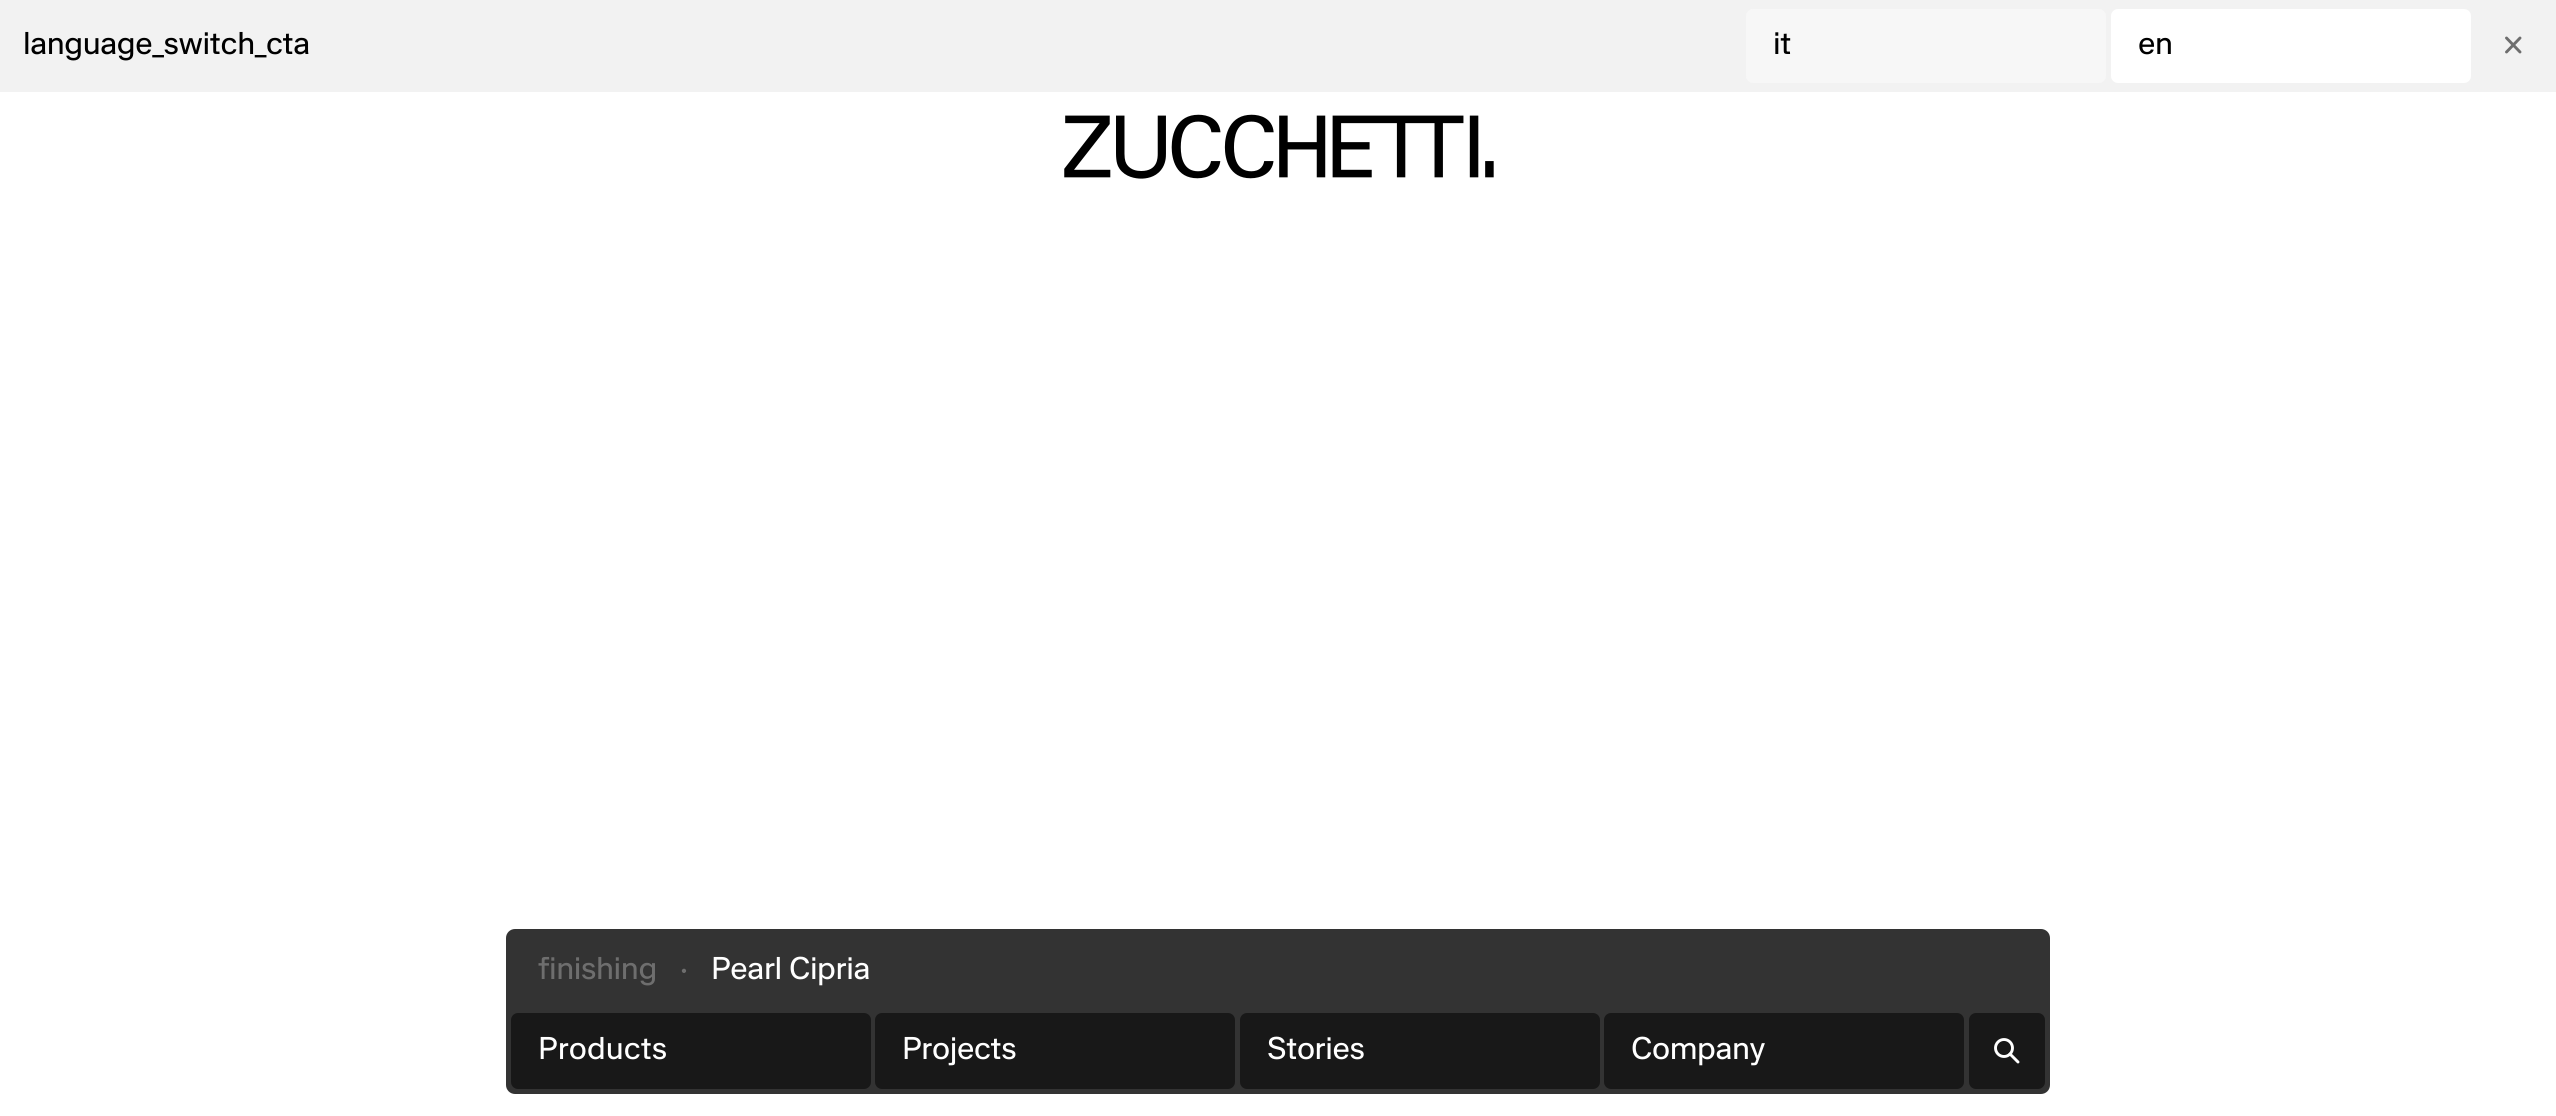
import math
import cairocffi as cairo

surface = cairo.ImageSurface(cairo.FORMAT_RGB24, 2556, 1116)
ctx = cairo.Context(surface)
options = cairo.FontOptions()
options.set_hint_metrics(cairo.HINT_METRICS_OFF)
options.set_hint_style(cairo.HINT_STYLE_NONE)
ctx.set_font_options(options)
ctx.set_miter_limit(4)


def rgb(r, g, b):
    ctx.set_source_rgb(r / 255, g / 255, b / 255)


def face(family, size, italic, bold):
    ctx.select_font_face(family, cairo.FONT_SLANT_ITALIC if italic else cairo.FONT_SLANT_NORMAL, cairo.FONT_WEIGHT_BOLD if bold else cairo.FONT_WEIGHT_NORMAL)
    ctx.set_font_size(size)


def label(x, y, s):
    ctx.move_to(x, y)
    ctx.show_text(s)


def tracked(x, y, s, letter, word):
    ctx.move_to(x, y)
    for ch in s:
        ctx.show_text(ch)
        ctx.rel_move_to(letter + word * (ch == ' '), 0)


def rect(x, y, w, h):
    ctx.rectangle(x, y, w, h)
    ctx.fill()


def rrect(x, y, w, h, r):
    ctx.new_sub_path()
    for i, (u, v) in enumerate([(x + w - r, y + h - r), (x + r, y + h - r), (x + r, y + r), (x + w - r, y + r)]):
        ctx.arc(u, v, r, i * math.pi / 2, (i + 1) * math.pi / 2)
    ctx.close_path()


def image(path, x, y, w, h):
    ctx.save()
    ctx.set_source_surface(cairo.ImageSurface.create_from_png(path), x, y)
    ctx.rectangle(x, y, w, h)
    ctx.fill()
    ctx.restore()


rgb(255, 255, 255)
ctx.paint()
rgb(242, 242, 242)
rect(0, 0, 2556, 92)
face('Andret', 31.5, 0, 0)
rgb(0, 0, 0)
tracked(23, 54, 'language_switch_cta', -0.4, 0)
rgb(247, 247, 247)
rrect(1746, 9, 360, 74, 7)
ctx.fill()
rgb(0, 0, 0)
tracked(1773, 54, 'it', -0.4, 0)
rgb(255, 255, 255)
rrect(2111, 9, 360, 74, 7)
ctx.fill()
rgb(0, 0, 0)
tracked(2138, 54, 'en', -0.4, 0)
ctx.new_path()
ctx.move_to(2506.5, 38)
ctx.line_to(2520, 52)
ctx.move_to(2520, 38)
ctx.line_to(2506.5, 52)
rgb(110, 110, 110)
ctx.set_line_width(2.9)
ctx.set_line_cap(cairo.LINE_CAP_ROUND)
ctx.stroke()
image('image0.png', 1064, 114, 430, 65)
rgb(51, 51, 51)
rrect(506, 929, 1544, 165, 9)
ctx.fill()
rgb(110, 110, 110)
tracked(538, 979, 'finishing', -0.4, 0)
tracked(679, 979, '•', -0.4, 0)
rgb(255, 255, 255)
tracked(711, 979, 'Pearl Cipria', -0.4, 0)
rgb(24, 24, 24)
rrect(511, 1013, 360, 76, 7)
ctx.fill()
rgb(255, 255, 255)
label(538, 1059, 'Products')
rgb(24, 24, 24)
rrect(875, 1013, 360, 76, 7)
ctx.fill()
rgb(255, 255, 255)
tracked(902, 1059, 'Projects', -0.4, 0)
rgb(24, 24, 24)
rrect(1240, 1013, 360, 76, 7)
ctx.fill()
rgb(255, 255, 255)
tracked(1267, 1059, 'Stories', -0.4, 0)
rgb(24, 24, 24)
rrect(1604, 1013, 360, 76, 7)
ctx.fill()
rgb(255, 255, 255)
tracked(1631, 1059, 'Company', -0.4, 0)
rgb(24, 24, 24)
rrect(1969, 1013, 76, 76, 7)
ctx.fill()
ctx.arc(2004, 1048, 8.5, 0, 2 * math.pi)
rgb(255, 255, 255)
ctx.set_line_cap(cairo.LINE_CAP_BUTT)
ctx.stroke()
ctx.new_path()
ctx.move_to(2010, 1054)
ctx.line_to(2018, 1062)
ctx.set_line_cap(cairo.LINE_CAP_ROUND)
ctx.stroke()
surface.write_to_png('render.png')
